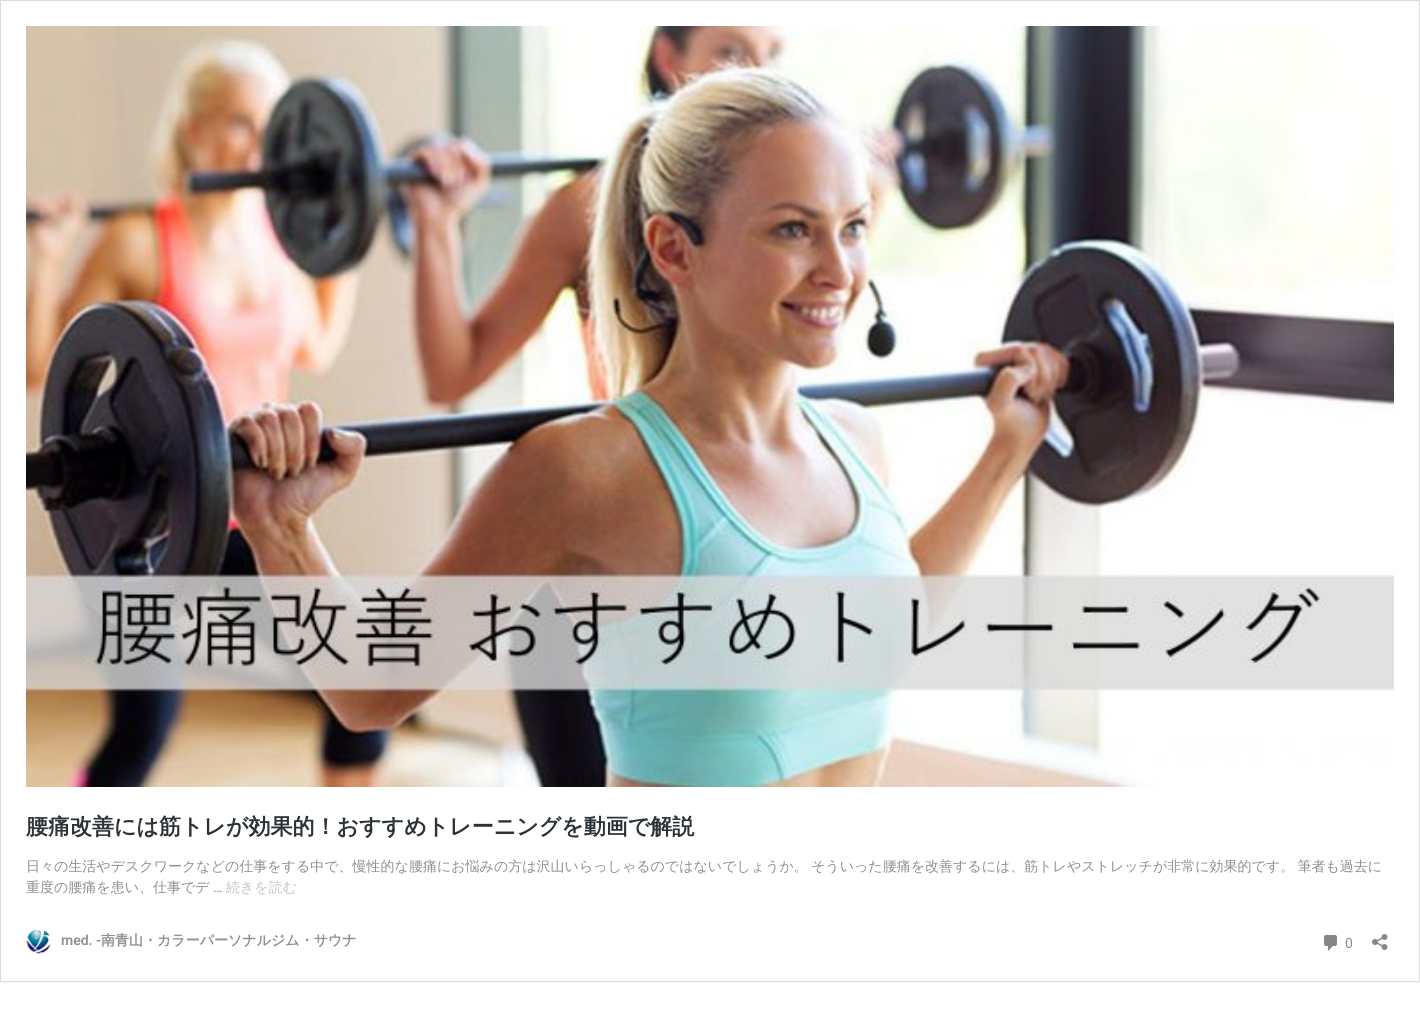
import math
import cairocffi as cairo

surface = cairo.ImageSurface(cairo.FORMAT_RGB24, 1420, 1013)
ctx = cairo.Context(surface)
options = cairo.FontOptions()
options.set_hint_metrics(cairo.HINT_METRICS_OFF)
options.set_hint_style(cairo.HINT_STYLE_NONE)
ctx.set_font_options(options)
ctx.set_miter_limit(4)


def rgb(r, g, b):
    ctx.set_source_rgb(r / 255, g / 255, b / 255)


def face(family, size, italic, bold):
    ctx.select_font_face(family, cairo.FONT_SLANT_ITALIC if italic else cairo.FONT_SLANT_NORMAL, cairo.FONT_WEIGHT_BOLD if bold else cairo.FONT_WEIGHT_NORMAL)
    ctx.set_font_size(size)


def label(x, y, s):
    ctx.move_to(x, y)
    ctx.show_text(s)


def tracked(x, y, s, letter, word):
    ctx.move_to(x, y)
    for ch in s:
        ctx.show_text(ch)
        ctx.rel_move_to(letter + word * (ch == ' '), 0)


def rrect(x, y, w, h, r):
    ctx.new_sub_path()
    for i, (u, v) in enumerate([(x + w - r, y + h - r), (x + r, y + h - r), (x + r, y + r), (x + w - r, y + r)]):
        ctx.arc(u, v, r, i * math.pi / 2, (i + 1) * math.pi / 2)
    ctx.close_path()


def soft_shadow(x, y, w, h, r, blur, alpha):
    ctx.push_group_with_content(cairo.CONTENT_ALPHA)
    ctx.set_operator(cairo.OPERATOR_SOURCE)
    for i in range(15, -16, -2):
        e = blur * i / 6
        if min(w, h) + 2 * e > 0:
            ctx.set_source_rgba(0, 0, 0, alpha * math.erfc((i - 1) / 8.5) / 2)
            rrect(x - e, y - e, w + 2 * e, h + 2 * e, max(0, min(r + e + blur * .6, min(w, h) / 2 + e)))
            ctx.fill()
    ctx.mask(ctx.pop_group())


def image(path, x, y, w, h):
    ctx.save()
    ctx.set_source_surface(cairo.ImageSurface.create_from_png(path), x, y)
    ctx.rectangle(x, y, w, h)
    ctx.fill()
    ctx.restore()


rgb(255, 255, 255)
ctx.paint()
ctx.save()
ctx.rectangle(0, 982, 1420, 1)
ctx.clip()
rgb(0, 0, 0)
soft_shadow(0, 1, 1420, 982, 0, 0.5, 0.05)
ctx.restore()
ctx.rectangle(0.5, 0.5, 1419, 981)
rgb(220, 220, 222)
ctx.set_line_width(1)
ctx.stroke()
image('image0.png', 26, 26, 1368, 761)
face('WenQuanYi Zen Hei', 22, 0, 1)
rgb(44, 51, 56)
label(26, 834, '腰痛改善には筋トレが効果的！おすすめトレーニングを動画で解説')
face('WenQuanYi Zen Hei Medium', 14, 0, 0)
rgb(140, 143, 148)
tracked(26, 871, '日々の生活やデスクワークなどの仕事をする中で、慢性的な腰痛にお悩みの方は沢山いらっしゃるのではないでしょうか。 そういった腰痛を改善するには、筋トレやストレッチが非常に効果的です。 筆者も過去に', 0, -1)
label(26, 892, '重度の腰痛を患い、仕事でデ')
face('Roboto', 14, 0, 0)
label(213, 892, '…')
face('WenQuanYi Zen Hei Medium', 14, 0, 0)
rgb(195, 196, 199)
label(226, 892, '続きを読む')
image('image1.png', 26, 929, 25, 25)
face('Roboto SemiBold', 14, 0, 0)
rgb(140, 143, 148)
label(61, 945, 'med. -')
face('WenQuanYi Zen Hei', 14, 0, 1)
label(101, 945, '南青山・カラーパーソナルジム・サウナ')
image('image2.png', 1324, 935, 13, 16)
face('Roboto', 14, 0, 0)
label(1345, 948, '0')
image('image3.png', 1372, 934, 16, 16)
surface.write_to_png('render.png')
